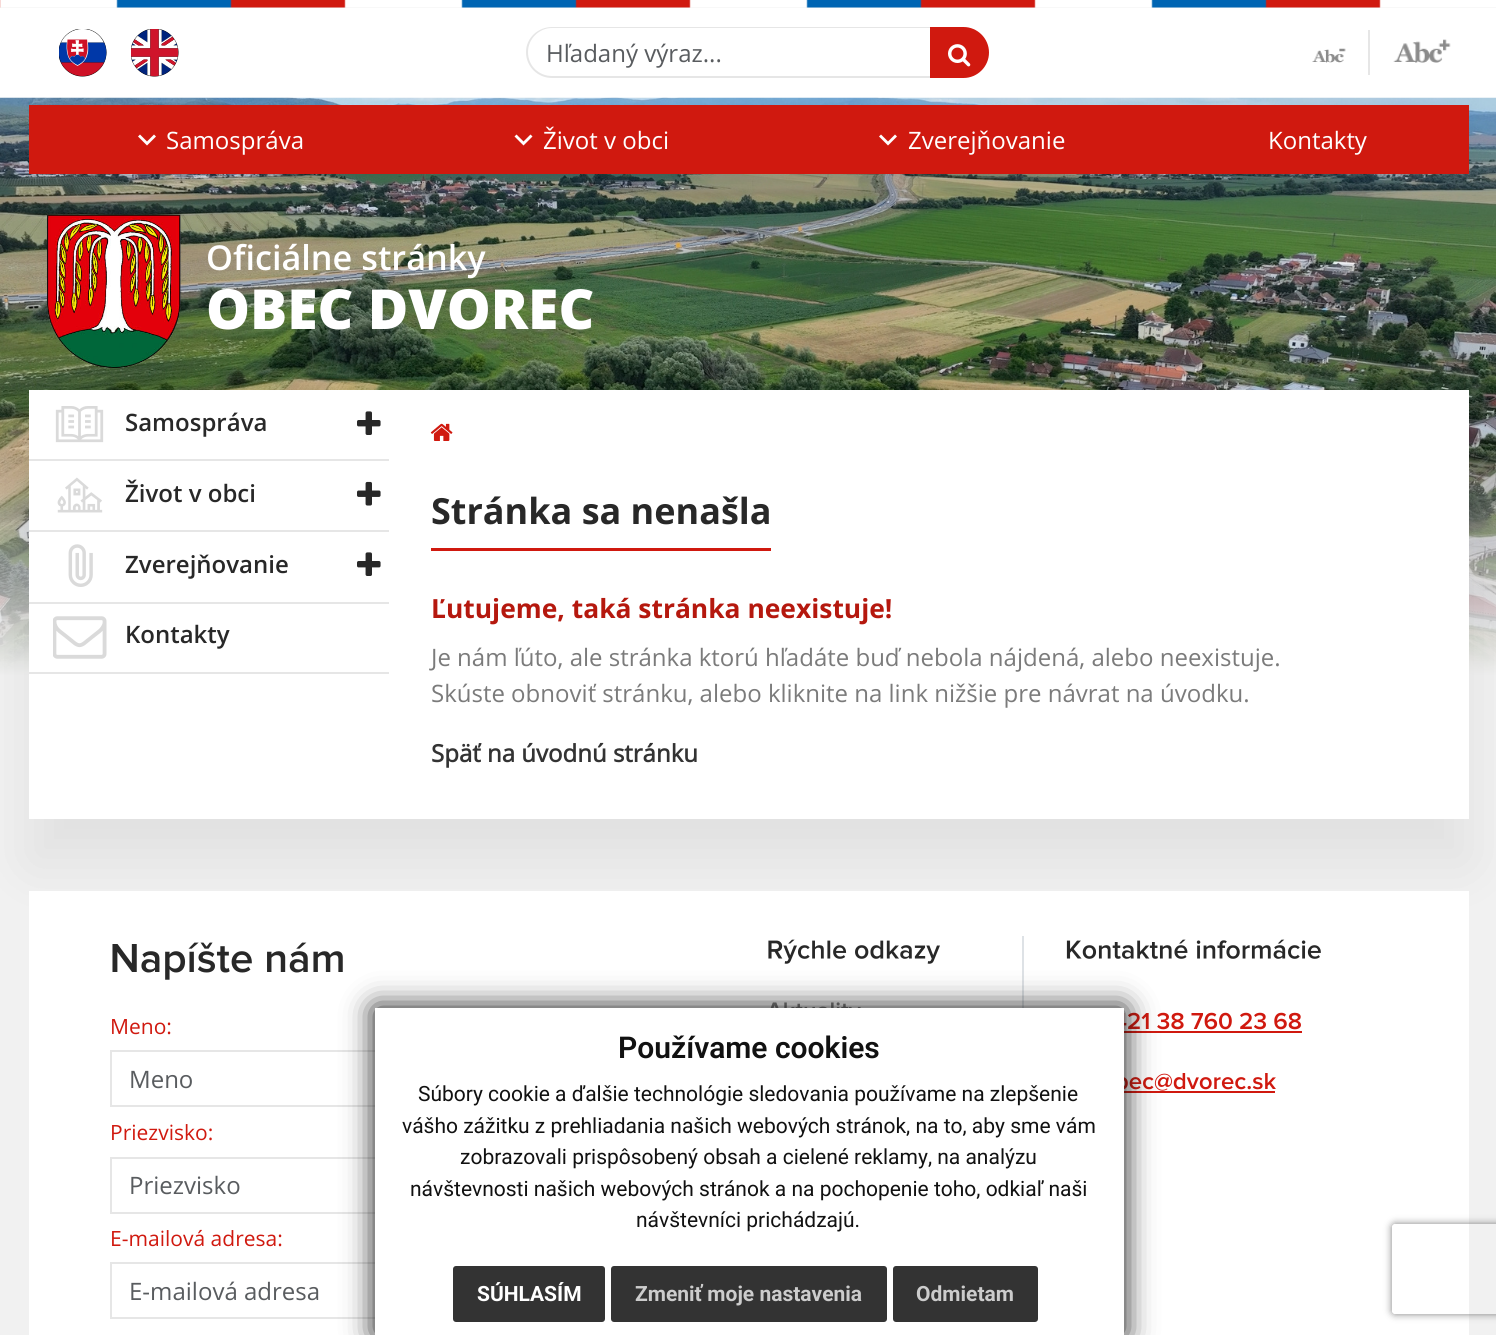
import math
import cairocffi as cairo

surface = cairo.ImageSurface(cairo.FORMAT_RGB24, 1496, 1335)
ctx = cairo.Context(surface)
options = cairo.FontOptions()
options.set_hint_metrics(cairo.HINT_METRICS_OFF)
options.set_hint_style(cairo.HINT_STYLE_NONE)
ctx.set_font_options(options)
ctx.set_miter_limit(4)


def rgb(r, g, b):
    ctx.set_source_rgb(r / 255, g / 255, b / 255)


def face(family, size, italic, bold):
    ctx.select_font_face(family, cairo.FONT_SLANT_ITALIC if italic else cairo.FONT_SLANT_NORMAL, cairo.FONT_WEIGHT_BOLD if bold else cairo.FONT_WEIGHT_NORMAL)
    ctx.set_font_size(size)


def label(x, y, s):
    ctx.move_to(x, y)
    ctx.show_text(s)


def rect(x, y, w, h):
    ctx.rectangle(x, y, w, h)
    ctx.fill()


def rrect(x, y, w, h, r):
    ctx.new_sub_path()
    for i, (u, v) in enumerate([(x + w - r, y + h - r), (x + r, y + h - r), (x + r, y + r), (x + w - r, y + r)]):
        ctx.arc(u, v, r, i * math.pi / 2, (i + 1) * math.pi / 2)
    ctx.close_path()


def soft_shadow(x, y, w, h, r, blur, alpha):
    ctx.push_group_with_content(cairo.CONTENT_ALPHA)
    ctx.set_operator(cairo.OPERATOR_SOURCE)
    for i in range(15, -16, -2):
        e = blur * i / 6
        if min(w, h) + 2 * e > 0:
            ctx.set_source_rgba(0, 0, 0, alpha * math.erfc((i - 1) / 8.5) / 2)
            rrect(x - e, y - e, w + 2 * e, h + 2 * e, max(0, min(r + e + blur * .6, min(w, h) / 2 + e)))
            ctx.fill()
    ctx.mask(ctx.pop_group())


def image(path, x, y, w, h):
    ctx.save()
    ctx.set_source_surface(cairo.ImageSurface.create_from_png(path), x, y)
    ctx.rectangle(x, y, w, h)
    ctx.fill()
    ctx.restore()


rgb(241, 241, 241)
ctx.paint()
rgb(255, 255, 255)
rect(0, 8, 1496, 90)
image('image0.png', 0, 0, 1496, 8)
image('image1.png', 59, 29, 48, 48)
image('image2.png', 131, 29, 48, 48)
rgb(230, 230, 230)
ctx.set_fill_rule(cairo.FILL_RULE_EVEN_ODD)
ctx.new_path()
ctx.move_to(552, 27)
ctx.line_to(930, 27)
ctx.line_to(930, 78)
ctx.line_to(552, 78)
ctx.curve_to(538, 78, 526, 67, 526, 52)
ctx.curve_to(526, 38, 538, 27, 552, 27)
ctx.close_path()
ctx.move_to(552, 28)
ctx.line_to(930, 28)
ctx.line_to(930, 76)
ctx.line_to(552, 76)
ctx.curve_to(539, 76, 528, 66, 528, 52)
ctx.curve_to(528, 39, 539, 28, 552, 28)
ctx.close_path()
ctx.fill()
face('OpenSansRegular', 24, 0, 0)
rgb(89, 92, 95)
label(546, 62, 'Hľadaný výraz...')
rgb(208, 25, 15)
ctx.new_path()
ctx.move_to(930, 27)
ctx.line_to(963.5, 27)
ctx.curve_to(977.5, 27, 989, 38.5, 989, 52.5)
ctx.curve_to(989, 66.5, 977.5, 78, 963.5, 78)
ctx.line_to(930, 78)
ctx.close_path()
ctx.fill()
image('image3.png', 948, 44, 23, 23)
image('image4.png', 1312, 48, 34, 15)
rgb(230, 230, 230)
rect(1368, 30, 2, 45)
image('image5.png', 1393, 39, 58, 24)
image('image6.png', 0, 97, 1496, 578)
rgb(208, 25, 15)
rect(29, 105, 1440, 69)
rgb(255, 255, 255)
ctx.set_fill_rule(cairo.FILL_RULE_WINDING)
ctx.new_path()
ctx.move_to(154, 134.5)
ctx.line_to(156, 136.5)
ctx.line_to(147, 145.5)
ctx.line_to(138, 136.5)
ctx.line_to(140, 134.5)
ctx.line_to(147, 141.5)
ctx.close_path()
ctx.fill()
label(166, 149, 'Samospráva')
ctx.new_path()
ctx.move_to(530.5, 134.5)
ctx.line_to(532.5, 136.5)
ctx.line_to(523.5, 145.5)
ctx.line_to(514.5, 136.5)
ctx.line_to(516.5, 134.5)
ctx.line_to(523.5, 141.5)
ctx.close_path()
ctx.fill()
label(543, 149, 'Život v obci')
ctx.new_path()
ctx.move_to(895, 134.5)
ctx.line_to(897, 136.5)
ctx.line_to(888, 145.5)
ctx.line_to(879, 136.5)
ctx.line_to(881, 134.5)
ctx.line_to(888, 141.5)
ctx.close_path()
ctx.fill()
label(908, 149, 'Zverejňovanie')
label(1268, 149, 'Kontakty')
image('image7.png', 47, 214, 134, 154)
face('Open Sans SemiBold', 34.25, 0, 0)
label(206, 270, 'Oficiálne stránky')
face('Open Sans ExtraBold', 55.25, 0, 0)
label(206, 329, 'OBEC DVOREC')
rgb(0, 0, 0)
soft_shadow(29, 435, 1440, 429, 0, 30, 0.07)
rgb(255, 255, 255)
rect(29, 390, 1440, 429)
rgb(230, 230, 230)
rect(29, 459, 360, 2)
image('image8.png', 55, 406, 49, 37)
face('Open Sans SemiBold', 24, 0, 0)
rgb(40, 40, 40)
label(125, 431, 'Samospráva')
image('image9.png', 357, 411, 24, 24)
rgb(230, 230, 230)
rect(29, 530, 360, 2)
image('image10.png', 57, 477, 46, 36)
rgb(40, 40, 40)
label(125, 502, 'Život v obci')
image('image11.png', 357, 481, 24, 25)
rgb(230, 230, 230)
rect(29, 602, 360, 2)
image('image12.png', 68, 544, 25, 43)
rgb(40, 40, 40)
label(125, 573, 'Zverejňovanie')
image('image9.png', 357, 552, 24, 24)
rgb(230, 230, 230)
rect(29, 672, 360, 2)
image('image13.png', 53, 616, 54, 43)
rgb(40, 40, 40)
label(125, 643, 'Kontakty')
image('image14.png', 430, 423, 23, 18)
rgb(208, 25, 15)
rect(431, 548, 340, 3)
face('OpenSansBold', 36, 0, 1)
rgb(40, 40, 40)
label(431, 524, 'Stránka sa nenašla')
face('OpenSansBold', 26.4, 0, 1)
rgb(181, 24, 14)
label(431, 618, 'Ľutujeme, taká stránka neexistuje!')
face('OpenSansRegular', 24, 0, 0)
rgb(123, 123, 123)
label(431, 666, 'Je nám ľúto, ale stránka ktorú hľadáte buď nebola nájdená, alebo neexistuje.')
label(431, 702, 'Skúste obnoviť stránku, alebo kliknite na link nižšie pre návrat na úvodku.')
face('OpenSansRegular', 24, 0, 1)
rgb(51, 51, 51)
label(431, 762, 'Späť na úvodnú stránku')
rgb(255, 255, 255)
rect(29, 891, 1440, 444)
image('image15.png', 112, 942, 231, 38)
face('OpenSansRegular', 21, 0, 0)
rgb(208, 25, 15)
label(110, 1034, 'Meno:')
ctx.rectangle(111, 1051, 284, 55)
rgb(230, 230, 230)
ctx.stroke()
face('OpenSansRegular', 24, 0, 0)
rgb(89, 92, 95)
label(129, 1088, 'Meno')
face('OpenSansRegular', 21, 0, 0)
rgb(208, 25, 15)
label(110, 1140, 'Priezvisko:')
ctx.rectangle(111, 1158, 284, 55)
rgb(230, 230, 230)
ctx.stroke()
face('OpenSansRegular', 24, 0, 0)
rgb(89, 92, 95)
label(129, 1194, 'Priezvisko')
face('OpenSansRegular', 21, 0, 0)
rgb(208, 25, 15)
label(110, 1246, 'E-mailová adresa:')
ctx.rectangle(111, 1263, 284, 55)
rgb(230, 230, 230)
ctx.stroke()
face('OpenSansRegular', 24, 0, 0)
rgb(89, 92, 95)
label(129, 1300, 'E-mailová adresa')
rgb(222, 226, 230)
rect(1022, 936, 2, 72)
image('image16.png', 768, 939, 172, 25)
image('image17.png', 770, 1002, 91, 6)
image('image18.png', 1066, 939, 255, 20)
image('image19.png', 1124, 1012, 177, 18)
rgb(208, 25, 15)
rect(1124, 1031, 178, 2)
image('image20.png', 1124, 1073, 152, 18)
rect(1124, 1091, 151, 2)
rgb(17, 17, 17)
soft_shadow(375, 1008, 749, 327, 0, 15, 1)
rgb(255, 255, 255)
rect(375, 1008, 749, 327)
face('Roboto SemiBold', 30, 0, 0)
rgb(17, 17, 17)
label(618, 1058, 'Používame cookies')
face('Roboto', 21, 0, 0)
label(418, 1101, 'Súbory cookie a ďalšie technológie sledovania používame na zlepšenie')
label(402, 1133, 'vášho zážitku z prehliadania našich webových stránok, na to, aby sme vám')
label(460, 1164, 'zobrazovali prispôsobený obsah a cielené reklamy, na analýzu')
label(410, 1196, 'návštevnosti našich webových stránok a na pochopenie toho, odkiaľ naši')
label(636, 1227, 'návštevníci prichádzajú.')
rgb(51, 51, 51)
rrect(453, 1266, 152, 56, 3)
ctx.fill()
face('Roboto', 21, 0, 1)
rgb(255, 255, 255)
label(477, 1301, 'SÚHLASÍM')
rgb(51, 51, 51)
rrect(611, 1266, 276, 56, 3)
ctx.fill()
rgb(204, 204, 204)
label(635, 1301, 'Zmeniť moje nastavenia')
rgb(51, 51, 51)
rrect(893, 1266, 145, 56, 3)
ctx.fill()
rgb(204, 204, 204)
label(916, 1301, 'Odmietam')
ctx.save()
ctx.set_fill_rule(cairo.FILL_RULE_EVEN_ODD)
ctx.new_path()
ctx.move_to(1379, 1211)
ctx.line_to(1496, 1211)
ctx.line_to(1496, 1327)
ctx.line_to(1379, 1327)
ctx.close_path()
ctx.move_to(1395, 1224)
ctx.line_to(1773, 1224)
ctx.curve_to(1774.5, 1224, 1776, 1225.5, 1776, 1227)
ctx.line_to(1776, 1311)
ctx.curve_to(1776, 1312.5, 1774.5, 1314, 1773, 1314)
ctx.line_to(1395, 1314)
ctx.curve_to(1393.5, 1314, 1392, 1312.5, 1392, 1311)
ctx.line_to(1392, 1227)
ctx.curve_to(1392, 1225.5, 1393.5, 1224, 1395, 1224)
ctx.close_path()
ctx.clip()
rgb(128, 128, 128)
soft_shadow(1392, 1224, 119, 90, 3, 4, 1)
ctx.restore()
surface.write_to_png('render.png')
